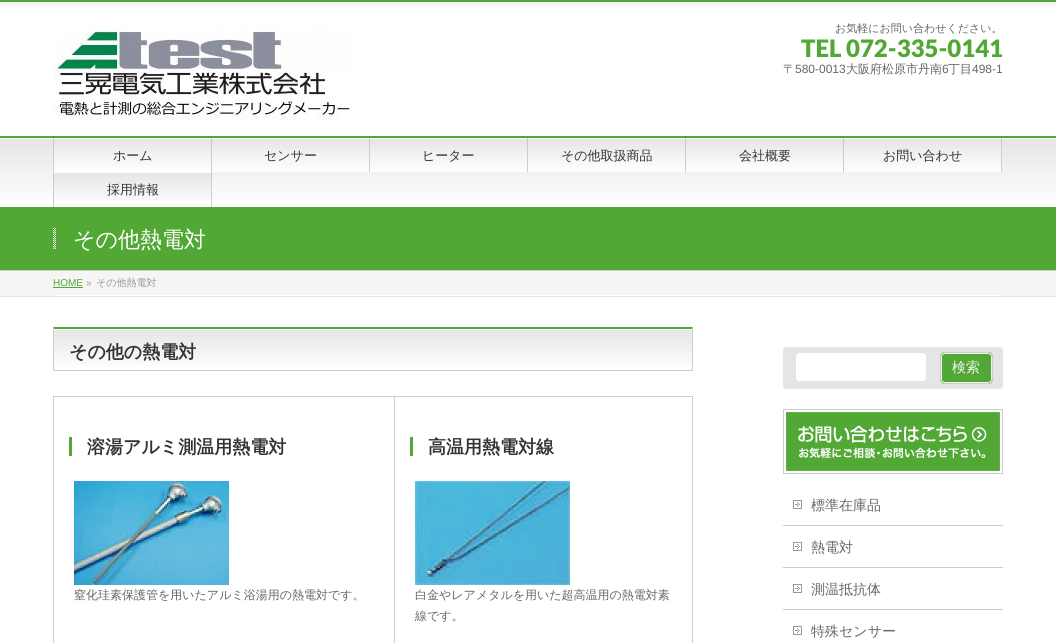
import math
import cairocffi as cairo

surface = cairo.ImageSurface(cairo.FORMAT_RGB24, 1056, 643)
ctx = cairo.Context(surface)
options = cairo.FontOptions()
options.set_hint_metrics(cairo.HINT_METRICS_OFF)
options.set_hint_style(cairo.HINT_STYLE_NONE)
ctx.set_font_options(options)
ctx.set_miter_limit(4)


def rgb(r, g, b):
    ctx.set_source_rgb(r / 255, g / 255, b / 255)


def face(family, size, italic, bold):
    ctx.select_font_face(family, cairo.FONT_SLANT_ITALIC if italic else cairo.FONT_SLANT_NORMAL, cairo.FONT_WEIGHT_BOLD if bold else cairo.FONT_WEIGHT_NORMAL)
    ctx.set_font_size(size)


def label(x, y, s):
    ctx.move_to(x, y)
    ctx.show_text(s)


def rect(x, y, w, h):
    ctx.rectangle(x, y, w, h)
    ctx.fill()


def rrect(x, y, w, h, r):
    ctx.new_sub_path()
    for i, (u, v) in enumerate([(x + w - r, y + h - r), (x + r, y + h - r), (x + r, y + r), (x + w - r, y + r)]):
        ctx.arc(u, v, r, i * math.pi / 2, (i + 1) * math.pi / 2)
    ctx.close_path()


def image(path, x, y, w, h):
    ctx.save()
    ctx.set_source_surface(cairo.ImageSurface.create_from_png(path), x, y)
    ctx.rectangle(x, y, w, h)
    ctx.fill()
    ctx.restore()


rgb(255, 255, 255)
ctx.paint()
rgb(245, 245, 245)
rect(0, 2, 1056, 4)
rgb(81, 168, 52)
rect(0, 0, 1056, 2)
image('image0.png', 53, 24, 298, 96)
face('WenQuanYi Zen Hei Medium', 11, 0, 0)
rgb(102, 102, 102)
label(835, 32, 'お気軽にお問い合わせください。')
face('Lato Black', 24, 0, 0)
rgb(81, 168, 52)
label(801, 57, 'TEL 072-335-0141')
face('WenQuanYi Zen Hei Medium', 12, 0, 0)
rgb(102, 102, 102)
label(783, 73, '〒')
face('Liberation Sans', 12, 0, 0)
label(795, 73, '580-0013')
face('WenQuanYi Zen Hei Medium', 12, 0, 0)
label(846, 73, '大阪府松原市丹南')
face('Liberation Sans', 12, 0, 0)
label(942, 73, '6')
face('WenQuanYi Zen Hei Medium', 12, 0, 0)
label(948, 73, '丁目')
face('Liberation Sans', 12, 0, 0)
label(972, 73, '498-1')
gradient = cairo.LinearGradient(528, 138, 528, 207)
gradient.add_color_stop_rgba(0, 0.898, 0.898, 0.898, 1)
gradient.add_color_stop_rgba(1, 1, 1, 1, 1)
ctx.set_source(gradient)
rect(0, 139, 1056, 61)
rgb(81, 168, 52)
rect(0, 136, 1056, 2)
rgb(204, 204, 204)
rect(53, 138, 1, 69)
gradient = cairo.LinearGradient(54, 138, 54, 172)
gradient.add_color_stop_rgba(0, 0.898, 0.898, 0.898, 1)
gradient.add_color_stop_rgba(1, 1, 1, 1, 1)
ctx.set_source(gradient)
rect(54, 144, 157, 28)
rgb(204, 204, 204)
rect(211, 138, 1, 69)
face('WenQuanYi Zen Hei Medium', 13, 0, 0)
rgb(51, 51, 51)
label(113, 160, 'ホーム')
gradient = cairo.LinearGradient(212, 138, 212, 172)
gradient.add_color_stop_rgba(0, 0.898, 0.898, 0.898, 1)
gradient.add_color_stop_rgba(1, 1, 1, 1, 1)
ctx.set_source(gradient)
rect(212, 144, 157, 28)
rgb(204, 204, 204)
rect(369, 138, 1, 34)
rgb(51, 51, 51)
label(264, 160, 'センサー')
gradient = cairo.LinearGradient(370, 138, 370, 172)
gradient.add_color_stop_rgba(0, 0.898, 0.898, 0.898, 1)
gradient.add_color_stop_rgba(1, 1, 1, 1, 1)
ctx.set_source(gradient)
rect(370, 144, 157, 28)
rgb(204, 204, 204)
rect(527, 138, 1, 34)
rgb(51, 51, 51)
label(422, 160, 'ヒーター')
gradient = cairo.LinearGradient(528, 138, 528, 172)
gradient.add_color_stop_rgba(0, 0.898, 0.898, 0.898, 1)
gradient.add_color_stop_rgba(1, 1, 1, 1, 1)
ctx.set_source(gradient)
rect(528, 144, 157, 28)
rgb(204, 204, 204)
rect(685, 138, 1, 34)
rgb(51, 51, 51)
label(561, 160, 'その他取扱商品')
gradient = cairo.LinearGradient(686, 138, 686, 172)
gradient.add_color_stop_rgba(0, 0.898, 0.898, 0.898, 1)
gradient.add_color_stop_rgba(1, 1, 1, 1, 1)
ctx.set_source(gradient)
rect(686, 144, 157, 28)
rgb(204, 204, 204)
rect(843, 138, 1, 34)
rgb(51, 51, 51)
label(739, 160, '会社概要')
gradient = cairo.LinearGradient(844, 138, 844, 172)
gradient.add_color_stop_rgba(0, 0.898, 0.898, 0.898, 1)
gradient.add_color_stop_rgba(1, 1, 1, 1, 1)
ctx.set_source(gradient)
rect(844, 144, 157, 28)
rgb(204, 204, 204)
rect(1001, 138, 1, 34)
rgb(51, 51, 51)
label(883, 160, 'お問い合わせ')
gradient = cairo.LinearGradient(54, 172, 54, 207)
gradient.add_color_stop_rgba(0, 0.898, 0.898, 0.898, 1)
gradient.add_color_stop_rgba(1, 1, 1, 1, 1)
ctx.set_source(gradient)
rect(54, 173, 157, 28)
rgb(255, 255, 255)
rect(54, 172, 157, 1)
rgb(51, 51, 51)
label(107, 194, '採用情報')
rgb(81, 168, 52)
rect(0, 207, 1056, 63)
rgb(204, 204, 204)
rect(0, 270, 1056, 1)
image('image1.png', 53, 228, 3, 21)
face('WenQuanYi Zen Hei Medium', 22, 0, 0)
rgb(255, 255, 255)
label(73, 247, 'その他熱電対')
rgb(245, 245, 245)
rect(0, 271, 1056, 25)
rgb(229, 229, 229)
rect(0, 296, 1056, 1)
rgb(255, 255, 255)
rect(53, 295, 950, 1)
face('Liberation Sans', 10, 0, 0)
rgb(81, 168, 52)
label(53, 286, 'HOME')
rect(53, 287, 30, 1)
rgb(153, 153, 153)
label(86, 286, '»')
face('WenQuanYi Zen Hei Medium', 10, 0, 0)
label(96, 286, 'その他熱電対')
gradient = cairo.LinearGradient(54, 329, 54, 370)
gradient.add_color_stop_rgba(0, 0.898, 0.898, 0.898, 1)
gradient.add_color_stop_rgba(1, 1, 1, 1, 1)
ctx.set_source(gradient)
rect(54, 330, 638, 36)
rgb(81, 168, 52)
ctx.new_path()
ctx.move_to(53, 327)
ctx.line_to(693, 327)
ctx.line_to(692, 329)
ctx.line_to(54, 329)
ctx.close_path()
ctx.fill()
rgb(204, 204, 204)
ctx.new_path()
ctx.move_to(693, 327)
ctx.line_to(693, 371)
ctx.line_to(692, 370)
ctx.line_to(692, 329)
ctx.close_path()
ctx.fill()
rect(53, 370, 640, 1)
ctx.new_path()
ctx.move_to(53, 371)
ctx.line_to(53, 327)
ctx.line_to(54, 329)
ctx.line_to(54, 370)
ctx.close_path()
ctx.fill()
face('WenQuanYi Zen Hei', 18, 0, 1)
rgb(51, 51, 51)
label(69, 358, 'その他の熱電対')
rgb(204, 204, 204)
rect(53, 396, 640, 1)
rect(53, 396, 1, 247)
rgb(81, 168, 52)
rect(69, 437, 3, 19)
rgb(51, 51, 51)
label(87, 453, '溶湯アルミ測温用熱電対')
image('image2.png', 74, 481, 155, 104)
face('WenQuanYi Zen Hei Medium', 12, 0, 0)
rgb(102, 102, 102)
label(74, 599, '窒化珪素保護管を用いたアルミ浴湯用の熱電対です。')
rgb(204, 204, 204)
rect(692, 396, 1, 247)
rect(394, 396, 1, 247)
rgb(81, 168, 52)
rect(410, 437, 3, 19)
face('WenQuanYi Zen Hei', 18, 0, 1)
rgb(51, 51, 51)
label(428, 453, '高温用熱電対線')
image('image3.png', 415, 481, 155, 104)
face('WenQuanYi Zen Hei Medium', 12, 0, 0)
rgb(102, 102, 102)
label(415, 599, '白金やレアメタルを用いた超高温用の熱電対素')
label(415, 620, '線です。')
rgb(229, 229, 229)
rrect(783, 347, 220, 42, 3)
ctx.fill()
rgb(255, 255, 255)
rrect(795.5, 352.5, 131, 29, 3.5)
ctx.fill_preserve()
rgb(229, 229, 229)
ctx.set_line_width(1)
ctx.stroke()
rgb(81, 168, 52)
rrect(940, 352, 53, 32, 5)
ctx.fill()
rrect(941.5, 353.5, 50, 29, 3.5)
rgb(238, 246, 235)
ctx.stroke()
rrect(940.5, 352.5, 52, 31, 4.5)
rgb(204, 204, 204)
ctx.stroke()
face('WenQuanYi Zen Hei Medium', 14, 0, 0)
rgb(245, 245, 245)
label(952, 372, '検索')
rgb(81, 168, 52)
rect(786, 412, 214, 59)
image('image4.png', 783, 409, 220, 65)
rgb(204, 204, 204)
rect(783, 525, 220, 1)
image('image5.png', 793, 500, 9, 9)
rgb(102, 102, 102)
label(811, 510, '標準在庫品')
rgb(204, 204, 204)
rect(783, 567, 220, 1)
image('image5.png', 793, 542, 9, 9)
rgb(102, 102, 102)
label(811, 552, '熱電対')
rgb(204, 204, 204)
rect(783, 609, 220, 1)
image('image5.png', 793, 584, 9, 9)
rgb(102, 102, 102)
label(811, 594, '測温抵抗体')
image('image5.png', 793, 626, 9, 9)
label(811, 636, '特殊センサー')
surface.write_to_png('render.png')
